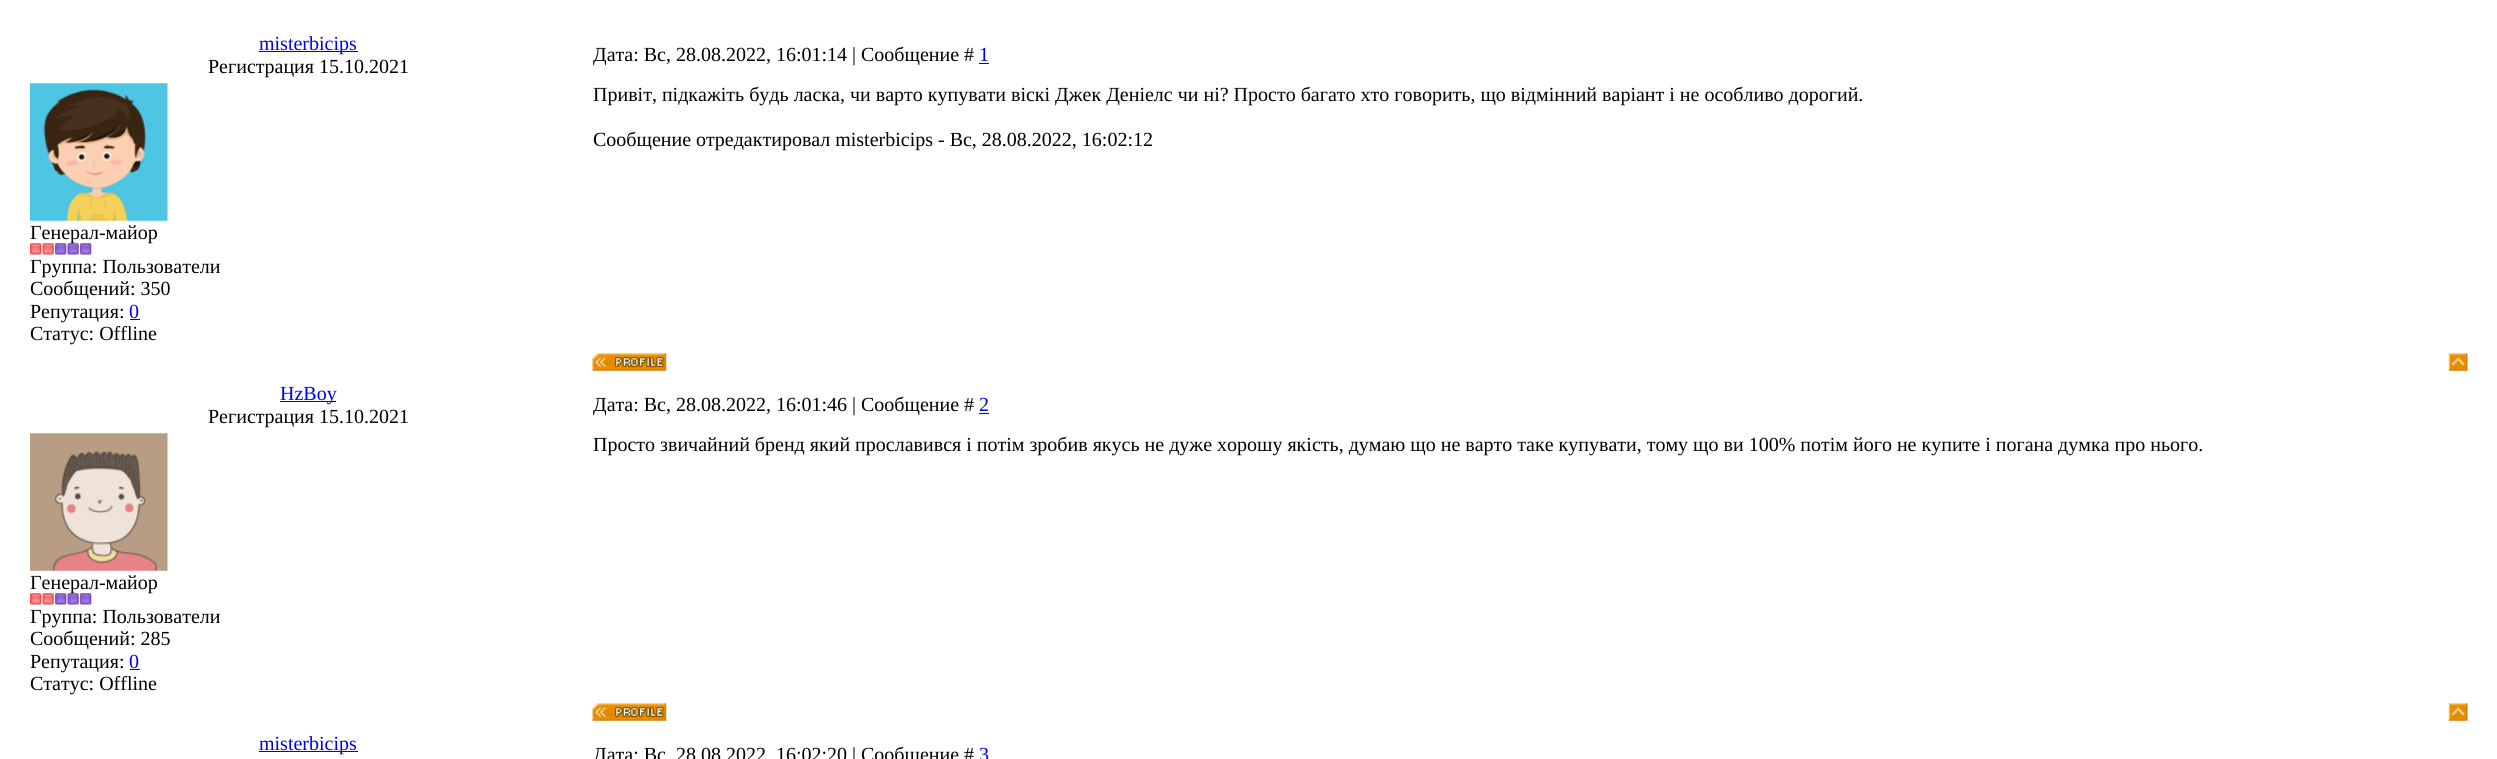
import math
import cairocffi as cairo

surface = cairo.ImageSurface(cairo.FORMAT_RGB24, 2497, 759)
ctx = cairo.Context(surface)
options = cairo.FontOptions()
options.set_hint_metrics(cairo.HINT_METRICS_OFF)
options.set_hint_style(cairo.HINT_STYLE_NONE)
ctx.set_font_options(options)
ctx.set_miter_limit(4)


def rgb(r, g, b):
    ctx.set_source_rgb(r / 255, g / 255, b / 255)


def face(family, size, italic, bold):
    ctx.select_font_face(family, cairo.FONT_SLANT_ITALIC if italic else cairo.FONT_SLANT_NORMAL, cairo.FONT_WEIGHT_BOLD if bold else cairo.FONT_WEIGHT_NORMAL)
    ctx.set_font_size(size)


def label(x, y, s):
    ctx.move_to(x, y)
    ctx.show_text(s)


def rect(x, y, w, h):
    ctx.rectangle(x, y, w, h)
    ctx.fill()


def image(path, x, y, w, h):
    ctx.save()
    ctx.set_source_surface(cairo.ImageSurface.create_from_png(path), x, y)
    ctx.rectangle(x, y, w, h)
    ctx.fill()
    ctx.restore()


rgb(255, 255, 255)
ctx.paint()
rgb(0, 0, 238)
rect(259, 51, 99, 1)
face('Liberation Serif', 20, 0, 0)
label(259, 50, 'misterbicips')
rgb(0, 0, 0)
label(208, 73, 'Регистрация 15.10.2021')
label(593, 61, 'Дата: Вс, 28.08.2022, 16:01:14 | Сообщение #')
rgb(0, 0, 238)
label(979, 61, '1')
rect(979, 63, 10, 1)
rgb(0, 0, 0)
label(593, 101, 'Привіт, підкажіть будь ласка, чи варто купувати віскі Джек Деніелс чи ні? Просто багато хто говорить, що відмінний варіант і не особливо дорогий.')
label(593, 146, 'Сообщение отредактировал misterbicips - Вс, 28.08.2022, 16:02:12')
image('image0.png', 30, 83, 138, 138)
label(30, 239, 'Генерал-майор')
image('image1.png', 30, 243, 62, 12)
label(30, 273, 'Группа: Пользователи')
label(30, 295, 'Сообщений: 350')
label(30, 318, 'Репутация:')
rgb(0, 0, 238)
label(129, 318, '0')
rect(130, 319, 10, 1)
rgb(0, 0, 0)
label(30, 340, 'Статус: Offline')
image('image2.png', 592, 353, 75, 18)
image('image3.png', 2448, 353, 20, 18)
rgb(0, 0, 238)
rect(280, 401, 56, 1)
label(280, 400, 'HzBoy')
rgb(0, 0, 0)
label(208, 423, 'Регистрация 15.10.2021')
label(593, 411, 'Дата: Вс, 28.08.2022, 16:01:46 | Сообщение #')
rgb(0, 0, 238)
label(979, 411, '2')
rect(979, 413, 10, 1)
rgb(0, 0, 0)
label(593, 451, 'Просто звичайний бренд який прославився і потім зробив якусь не дуже хорошу якість, думаю що не варто таке купувати, тому що ви 100% потім його не купите і погана думка про нього.')
image('image4.png', 30, 433, 138, 138)
label(30, 589, 'Генерал-майор')
image('image1.png', 30, 593, 62, 12)
label(30, 623, 'Группа: Пользователи')
label(30, 645, 'Сообщений: 285')
label(30, 668, 'Репутация:')
rgb(0, 0, 238)
label(129, 668, '0')
rect(130, 669, 10, 1)
rgb(0, 0, 0)
label(30, 690, 'Статус: Offline')
image('image5.png', 592, 703, 75, 18)
image('image6.png', 2448, 703, 20, 18)
rgb(0, 0, 238)
rect(259, 751, 99, 1)
label(259, 750, 'misterbicips')
rgb(0, 0, 0)
label(593, 761, 'Дата: Вс, 28.08.2022, 16:02:20 | Сообщение #')
rgb(0, 0, 238)
label(979, 761, '3')
surface.write_to_png('render.png')
